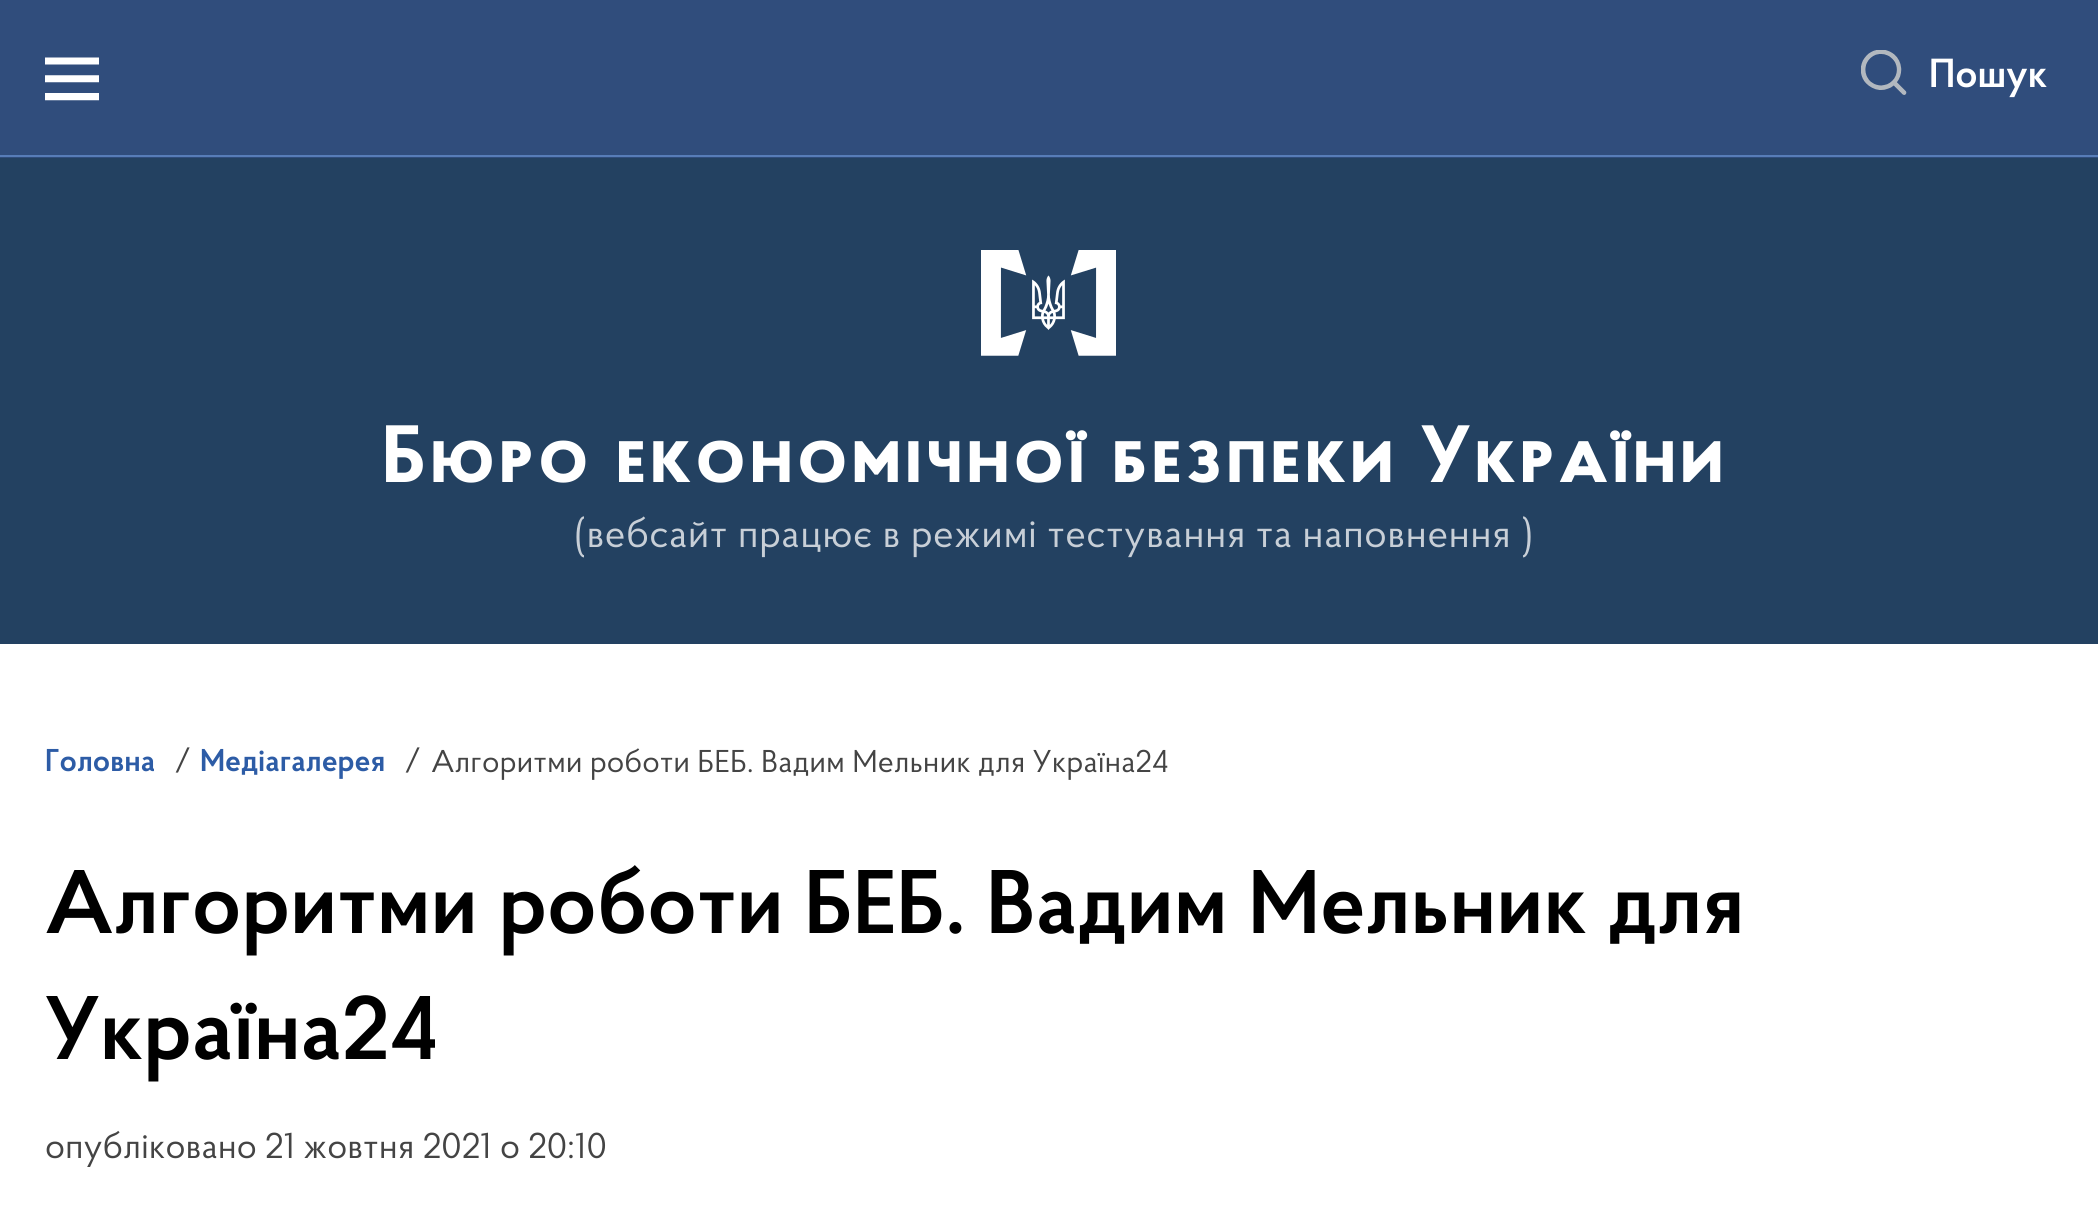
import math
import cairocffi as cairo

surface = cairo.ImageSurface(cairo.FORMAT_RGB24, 2098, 1210)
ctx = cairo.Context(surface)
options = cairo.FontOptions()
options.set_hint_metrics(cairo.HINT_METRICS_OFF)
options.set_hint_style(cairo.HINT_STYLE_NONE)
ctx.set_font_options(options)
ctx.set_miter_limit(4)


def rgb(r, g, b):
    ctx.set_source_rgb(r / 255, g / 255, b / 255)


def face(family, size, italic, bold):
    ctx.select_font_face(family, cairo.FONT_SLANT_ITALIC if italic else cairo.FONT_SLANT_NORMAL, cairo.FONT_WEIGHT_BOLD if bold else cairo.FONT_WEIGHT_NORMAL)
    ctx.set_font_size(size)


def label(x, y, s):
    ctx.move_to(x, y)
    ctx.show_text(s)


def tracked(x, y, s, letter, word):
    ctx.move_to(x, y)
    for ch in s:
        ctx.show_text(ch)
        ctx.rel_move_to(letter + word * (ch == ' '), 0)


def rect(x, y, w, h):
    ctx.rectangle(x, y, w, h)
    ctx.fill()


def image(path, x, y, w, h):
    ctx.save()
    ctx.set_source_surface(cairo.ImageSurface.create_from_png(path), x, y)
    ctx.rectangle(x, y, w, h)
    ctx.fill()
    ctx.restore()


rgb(255, 255, 255)
ctx.paint()
rgb(35, 65, 97)
rect(0, 158, 2098, 486)
rgb(48, 77, 124)
rect(0, 0, 2098, 158)
rgb(87, 125, 184)
rect(0, 155, 2098, 2)
image('image0.png', 45, 57, 54, 44)
image('image1.png', 1861, 50, 46, 45)
face('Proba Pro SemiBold', 40.5, 0, 0)
rgb(255, 255, 255)
label(1929, 87, 'Пошук')
image('image2.png', 981, 250, 135, 106)
face('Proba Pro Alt', 81, 0, 1)
tracked(382, 482, 'Бюро економічної безпеки України', 4.5, 0)
face('Proba Pro', 40.5, 0, 0)
rgb(200, 207, 215)
tracked(574, 547, '(вебсайт працює в режимі тестування та наповнення )', 0.45, 0)
face('Proba Pro SemiBold', 31.5, 0, 0)
rgb(45, 92, 166)
label(45, 771, 'Головна')
face('Proba Pro', 31.5, 0, 0)
rgb(68, 68, 68)
label(174, 771, '/')
face('Proba Pro SemiBold', 31.5, 0, 0)
rgb(45, 92, 166)
label(200, 771, 'Медіагалерея')
face('Proba Pro', 31.5, 0, 0)
rgb(68, 68, 68)
label(404, 771, '/')
label(431, 772, 'Алгоритми роботи БЕБ. Вадим Мельник для Україна24')
face('Proba Pro SemiBold', 90, 0, 0)
rgb(0, 0, 0)
label(45, 933, 'Алгоритми роботи БЕБ. Вадим Мельник для')
label(45, 1059, 'Україна24')
face('Proba Pro', 36, 0, 0)
rgb(68, 68, 68)
label(45, 1158, 'опубліковано 21 жовтня 2021 о 20:10')
surface.write_to_png('render.png')
